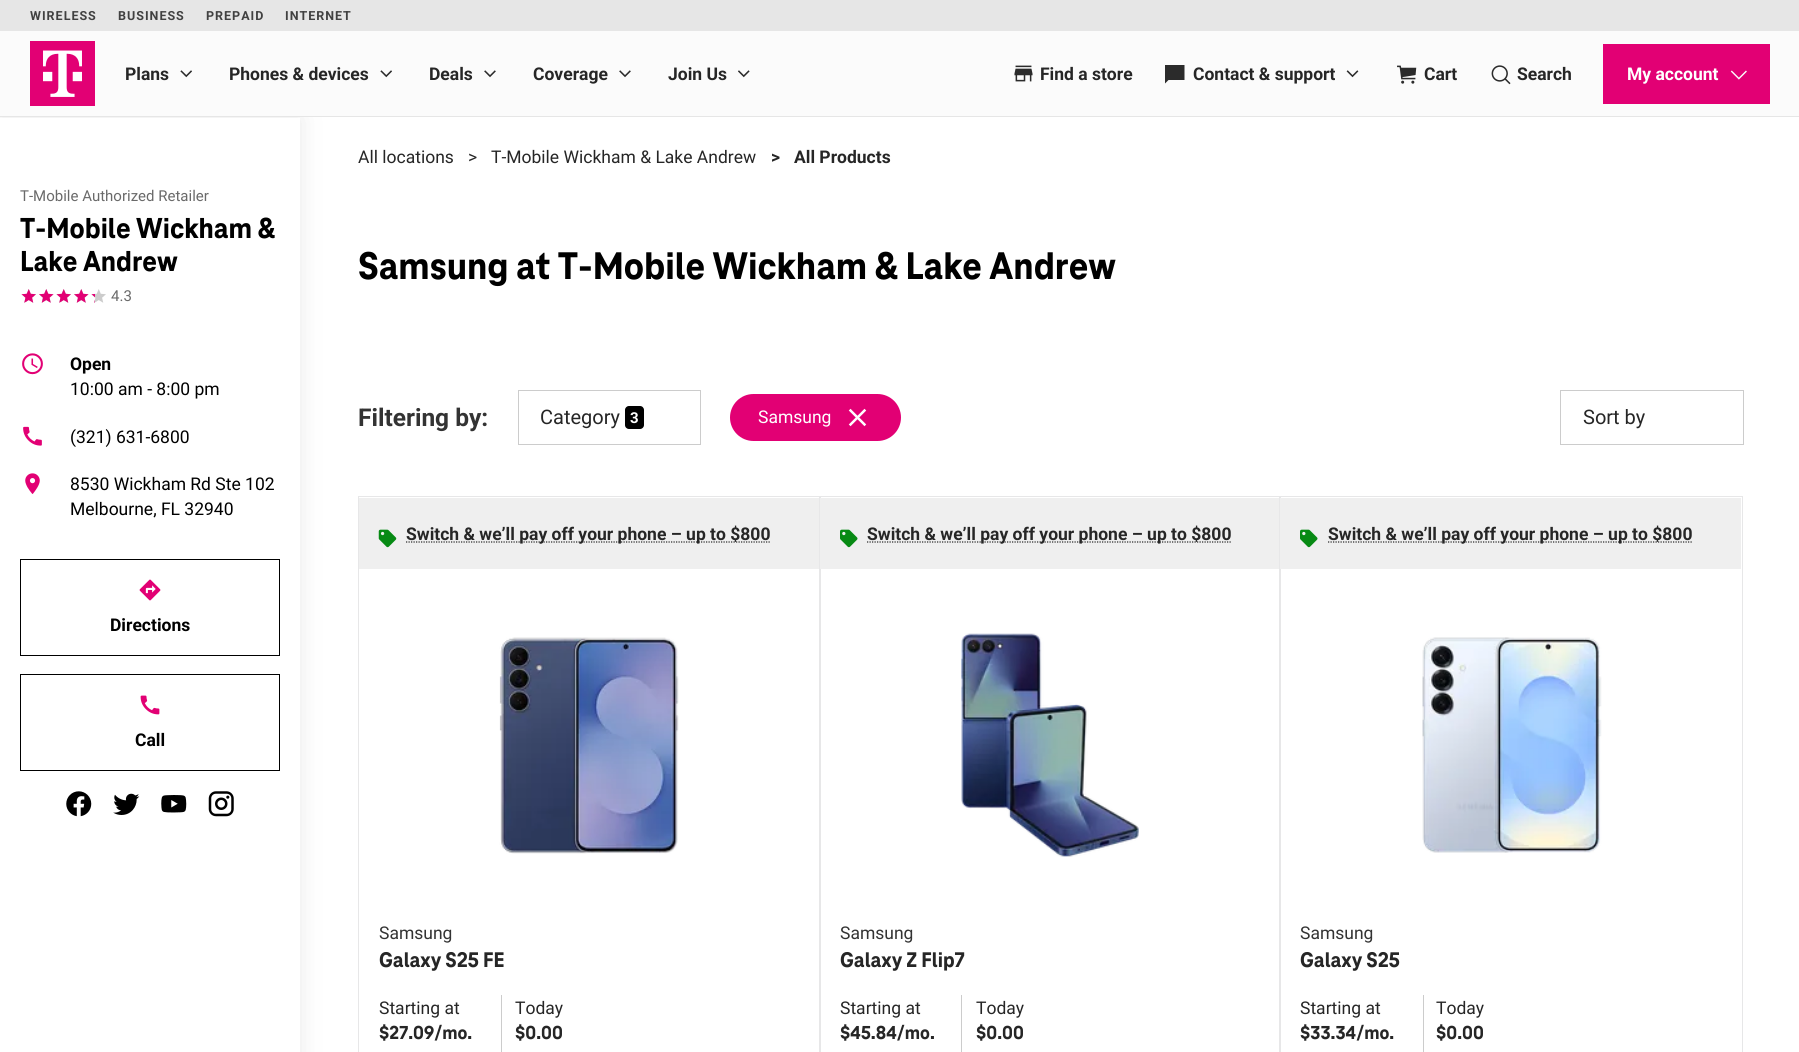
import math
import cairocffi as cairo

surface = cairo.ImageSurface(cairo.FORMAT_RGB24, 1799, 1052)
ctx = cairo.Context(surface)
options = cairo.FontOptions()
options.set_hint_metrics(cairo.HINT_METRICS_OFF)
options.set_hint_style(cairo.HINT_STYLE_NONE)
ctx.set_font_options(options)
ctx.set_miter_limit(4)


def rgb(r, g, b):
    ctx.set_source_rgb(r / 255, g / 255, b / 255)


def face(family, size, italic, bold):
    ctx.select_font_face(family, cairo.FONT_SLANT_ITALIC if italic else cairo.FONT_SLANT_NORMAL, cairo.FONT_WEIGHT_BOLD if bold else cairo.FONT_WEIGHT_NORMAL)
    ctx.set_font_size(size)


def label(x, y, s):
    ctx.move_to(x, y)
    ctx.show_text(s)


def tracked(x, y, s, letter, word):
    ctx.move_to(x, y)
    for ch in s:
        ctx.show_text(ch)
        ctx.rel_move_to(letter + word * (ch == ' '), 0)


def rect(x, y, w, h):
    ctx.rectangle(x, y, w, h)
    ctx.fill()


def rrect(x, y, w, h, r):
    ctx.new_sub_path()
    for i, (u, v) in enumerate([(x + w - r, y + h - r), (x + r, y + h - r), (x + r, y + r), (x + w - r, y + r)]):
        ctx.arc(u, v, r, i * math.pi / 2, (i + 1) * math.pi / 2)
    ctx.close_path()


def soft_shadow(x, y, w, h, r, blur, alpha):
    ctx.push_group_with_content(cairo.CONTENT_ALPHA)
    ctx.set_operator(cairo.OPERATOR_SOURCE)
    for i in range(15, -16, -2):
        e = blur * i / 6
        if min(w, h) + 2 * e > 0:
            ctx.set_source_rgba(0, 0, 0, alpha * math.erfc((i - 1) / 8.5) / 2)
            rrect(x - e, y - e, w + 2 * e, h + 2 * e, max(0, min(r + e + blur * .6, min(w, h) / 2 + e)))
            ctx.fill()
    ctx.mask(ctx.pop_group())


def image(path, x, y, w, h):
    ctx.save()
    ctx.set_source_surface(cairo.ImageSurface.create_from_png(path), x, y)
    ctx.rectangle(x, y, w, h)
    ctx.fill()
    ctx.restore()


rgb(255, 255, 255)
ctx.paint()
ctx.save()
ctx.set_fill_rule(cairo.FILL_RULE_EVEN_ODD)
ctx.new_path()
ctx.move_to(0, 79)
ctx.line_to(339, 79)
ctx.line_to(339, 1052)
ctx.line_to(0, 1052)
ctx.close_path()
ctx.move_to(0, 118)
ctx.line_to(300, 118)
ctx.line_to(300, 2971)
ctx.line_to(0, 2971)
ctx.close_path()
ctx.clip()
rgb(71, 71, 71)
soft_shadow(0, 118, 300, 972, 0, 12.5, 0.12)
ctx.restore()
rgb(230, 230, 230)
rect(0, 116, 1799, 1)
rgb(251, 251, 251)
rect(0, 31, 1799, 85)
rgb(230, 230, 230)
rect(0, 0, 1799, 31)
face('Roboto', 12.5, 0, 1)
rgb(65, 65, 65)
tracked(30, 20, 'WIRELESS', 1, 0)
tracked(118, 20, 'BUSINESS', 1, 0)
tracked(206, 20, 'PREPAID', 1, 0)
tracked(285, 20, 'INTERNET', 1, 0)
image('image0.png', 30, 41, 65, 65)
face('Roboto', 17.5, 0, 1)
rgb(38, 38, 38)
label(125, 80, 'Plans')
image('image1.png', 180, 70, 12, 8)
label(229, 80, 'Phones & devices')
image('image1.png', 380, 70, 12, 8)
label(429, 80, 'Deals')
image('image2.png', 484, 70, 12, 8)
label(533, 80, 'Coverage')
image('image2.png', 619, 70, 12, 8)
label(668, 80, 'Join Us')
image('image3.png', 738, 70, 12, 8)
image('image4.png', 1014, 65, 19, 17)
label(1040, 80, 'Find a store')
rgb(43, 43, 43)
ctx.new_path()
ctx.move_to(1165, 83.5)
ctx.line_to(1165, 65)
ctx.line_to(1184.5, 65)
ctx.line_to(1184.5, 80)
ctx.line_to(1168.5, 80)
ctx.close_path()
ctx.fill()
rgb(38, 38, 38)
label(1193, 80, 'Contact & support')
image('image5.png', 1346, 70, 13, 8)
image('image6.png', 1397, 65, 20, 19)
label(1424, 80, 'Cart')
image('image7.png', 1491, 65, 20, 20)
label(1517, 80, 'Search')
rgb(226, 0, 116)
rect(1603, 44, 167, 60)
rgb(255, 255, 255)
label(1627, 80, 'My account')
image('image8.png', 1730, 70, 17, 10)
face('Roboto', 15, 0, 0)
rgb(106, 106, 106)
label(20, 201, 'T-Mobile Authorized Retailer')
face('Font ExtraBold', 30, 0, 0)
rgb(0, 0, 0)
label(20, 238, 'T-Mobile Wickham &')
label(20, 271, 'Lake Andrew')
image('image9.png', 21, 289, 85, 14)
image('image10.png', 21, 289, 74, 14)
face('Roboto', 15, 0, 0)
rgb(106, 106, 106)
label(111, 301, '4.3')
image('image11.png', 22, 353, 21, 22)
face('Roboto', 17.5, 0, 1)
rgb(0, 0, 0)
label(70, 370, 'Open')
face('Roboto', 17.5, 0, 0)
label(70, 395, '10:00 am - 8:00 pm')
image('image12.png', 23, 426, 19, 20)
label(70, 443, '(321) 631-6800')
image('image13.png', 25, 473, 15, 21)
label(70, 490, '8530 Wickham Rd Ste 102')
label(70, 515, 'Melbourne, FL 32940')
ctx.rectangle(20.5, 559.5, 259, 96)
ctx.set_line_width(1)
ctx.stroke()
image('image14.png', 139, 579, 22, 22)
face('Roboto', 17.5, 0, 1)
label(110, 631, 'Directions')
ctx.rectangle(20.5, 674.5, 259, 96)
ctx.stroke()
image('image15.png', 140, 695, 20, 20)
label(135, 746, 'Call')
image('image16.png', 66, 791, 26, 26)
image('image17.png', 113, 793, 27, 22)
image('image18.png', 161, 795, 26, 18)
image('image19.png', 208, 791, 26, 26)
face('Roboto', 17.5, 0, 0)
rgb(38, 38, 38)
label(358, 163, 'All locations')
label(468, 163, '>')
label(491, 163, 'T-Mobile Wickham & Lake Andrew')
face('Roboto', 17.5, 0, 1)
label(771, 163, '>')
label(794, 163, 'All Products')
face('Font ExtraBold', 40, 0, 0)
rgb(0, 0, 0)
label(358, 279, 'Samsung at T-Mobile Wickham & Lake Andrew')
face('Roboto', 24.5, 0, 1)
rgb(51, 51, 51)
label(358, 426, 'Filtering by:')
rgb(0, 0, 0)
rrect(625, 406, 19, 23, 4)
ctx.fill()
ctx.rectangle(518.5, 390.5, 182, 54)
rgb(204, 204, 204)
ctx.stroke()
face('Roboto', 20, 0, 0)
rgb(38, 38, 38)
label(540, 424, 'Category')
face('Roboto', 15, 0, 1)
rgb(255, 255, 255)
label(630, 423, '3')
rgb(226, 0, 116)
rrect(730, 394, 171, 47, 23.5)
ctx.fill()
face('Roboto', 17.5, 0, 0)
rgb(255, 255, 255)
label(758, 423, 'Samsung')
image('image20.png', 848, 408, 19, 19)
ctx.rectangle(1560.5, 390.5, 183, 54)
rgb(204, 204, 204)
ctx.stroke()
face('Roboto', 20, 0, 0)
rgb(38, 38, 38)
label(1583, 424, 'Sort by')
rgb(239, 239, 239)
rect(359, 498, 460, 71)
image('image21.png', 378, 529, 19, 19)
ctx.new_path()
ctx.move_to(406, 542)
ctx.line_to(770.5, 542)
rgb(38, 38, 38)
ctx.set_line_width(1.2)
ctx.set_dash([1.25, 1.25])
ctx.stroke()
image('image22.png', 499, 637, 180, 217)
rgb(204, 204, 204)
rect(501, 995, 1, 57)
ctx.rectangle(358.5, 496.5, 462, 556)
rgb(231, 231, 232)
ctx.set_line_width(1)
ctx.set_dash([])
ctx.stroke()
face('Roboto', 17.5, 0, 1)
rgb(38, 38, 38)
label(406, 540, 'Switch & we’ll pay off your phone – up to $800')
face('Roboto', 17.5, 0, 0)
rgb(51, 51, 51)
label(379, 939, 'Samsung')
face('Font ExtraBold', 22, 0, 0)
rgb(38, 38, 38)
label(379, 967, 'Galaxy S25 FE')
face('Roboto', 17.5, 0, 0)
label(379, 1014, 'Starting at')
face('Font ExtraBold', 19.5, 0, 0)
label(379, 1039, '$27.09/mo.')
face('Roboto', 17.5, 0, 0)
label(515, 1014, 'Today')
face('Font ExtraBold', 19.5, 0, 0)
label(515, 1039, '$0.00')
rgb(239, 239, 239)
rect(820, 498, 459, 71)
image('image23.png', 840, 529, 18, 19)
ctx.new_path()
ctx.move_to(867, 542)
ctx.line_to(1231.5, 542)
rgb(38, 38, 38)
ctx.set_line_width(1.2)
ctx.set_dash([1.25, 1.25])
ctx.stroke()
image('image24.png', 961, 633, 178, 224)
rgb(204, 204, 204)
rect(961, 995, 1, 57)
ctx.rectangle(819.5, 496.5, 461, 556)
rgb(231, 231, 232)
ctx.set_line_width(1)
ctx.set_dash([])
ctx.stroke()
face('Roboto', 17.5, 0, 1)
rgb(38, 38, 38)
label(867, 540, 'Switch & we’ll pay off your phone – up to $800')
face('Roboto', 17.5, 0, 0)
rgb(51, 51, 51)
label(840, 939, 'Samsung')
face('Font ExtraBold', 22, 0, 0)
rgb(38, 38, 38)
label(840, 967, 'Galaxy Z Flip7')
face('Roboto', 17.5, 0, 0)
label(840, 1014, 'Starting at')
face('Font ExtraBold', 19.5, 0, 0)
label(840, 1039, '$45.84/mo.')
face('Roboto', 17.5, 0, 0)
label(976, 1014, 'Today')
face('Font ExtraBold', 19.5, 0, 0)
label(976, 1039, '$0.00')
rgb(239, 239, 239)
rect(1280, 498, 461, 71)
image('image23.png', 1300, 529, 18, 19)
ctx.new_path()
ctx.move_to(1328, 542)
ctx.line_to(1692.5, 542)
rgb(38, 38, 38)
ctx.set_line_width(1.2)
ctx.set_dash([1.25, 1.25])
ctx.stroke()
image('image25.png', 1422, 637, 180, 216)
rgb(204, 204, 204)
rect(1423, 995, 1, 57)
ctx.rectangle(1279.5, 496.5, 463, 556)
rgb(231, 231, 232)
ctx.set_line_width(1)
ctx.set_dash([])
ctx.stroke()
face('Roboto', 17.5, 0, 1)
rgb(38, 38, 38)
label(1328, 540, 'Switch & we’ll pay off your phone – up to $800')
face('Roboto', 17.5, 0, 0)
rgb(51, 51, 51)
label(1300, 939, 'Samsung')
face('Font ExtraBold', 22, 0, 0)
rgb(38, 38, 38)
label(1300, 967, 'Galaxy S25')
face('Roboto', 17.5, 0, 0)
label(1300, 1014, 'Starting at')
face('Font ExtraBold', 19.5, 0, 0)
label(1300, 1039, '$33.34/mo.')
face('Roboto', 17.5, 0, 0)
label(1436, 1014, 'Today')
face('Font ExtraBold', 19.5, 0, 0)
label(1436, 1039, '$0.00')
surface.write_to_png('render.png')
